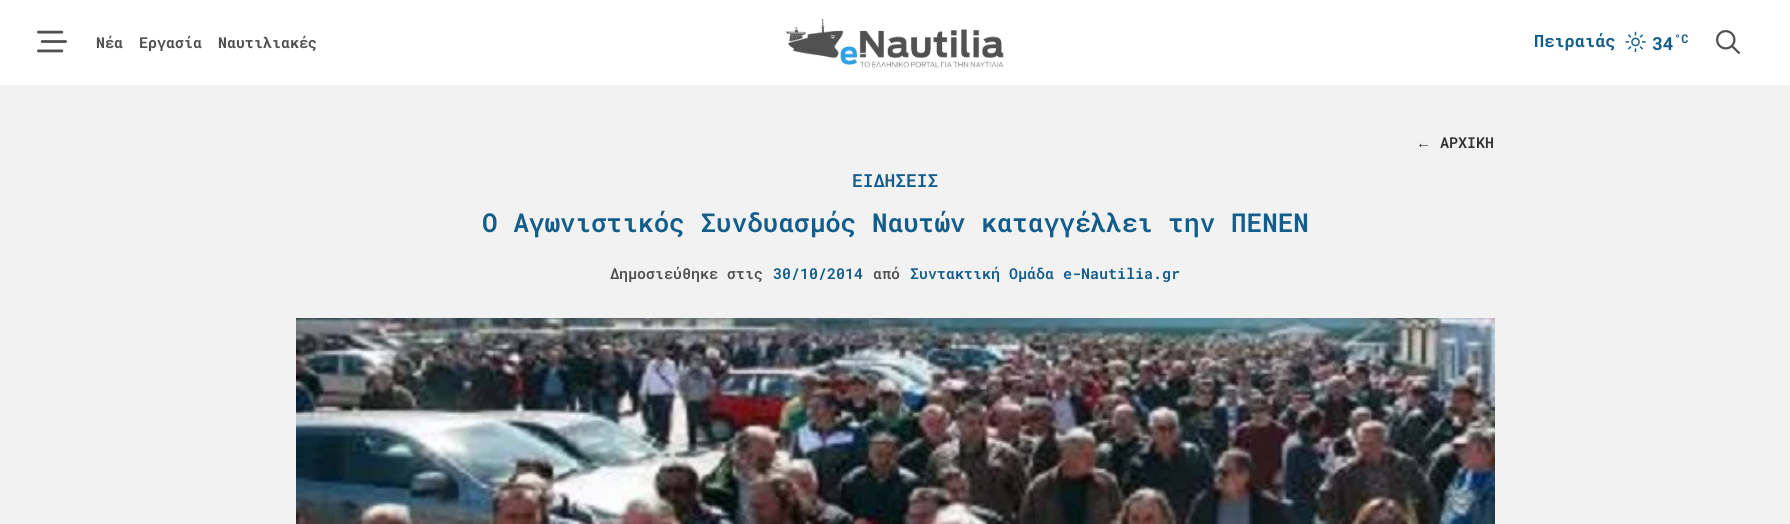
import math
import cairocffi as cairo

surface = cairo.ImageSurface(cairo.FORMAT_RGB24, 1790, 524)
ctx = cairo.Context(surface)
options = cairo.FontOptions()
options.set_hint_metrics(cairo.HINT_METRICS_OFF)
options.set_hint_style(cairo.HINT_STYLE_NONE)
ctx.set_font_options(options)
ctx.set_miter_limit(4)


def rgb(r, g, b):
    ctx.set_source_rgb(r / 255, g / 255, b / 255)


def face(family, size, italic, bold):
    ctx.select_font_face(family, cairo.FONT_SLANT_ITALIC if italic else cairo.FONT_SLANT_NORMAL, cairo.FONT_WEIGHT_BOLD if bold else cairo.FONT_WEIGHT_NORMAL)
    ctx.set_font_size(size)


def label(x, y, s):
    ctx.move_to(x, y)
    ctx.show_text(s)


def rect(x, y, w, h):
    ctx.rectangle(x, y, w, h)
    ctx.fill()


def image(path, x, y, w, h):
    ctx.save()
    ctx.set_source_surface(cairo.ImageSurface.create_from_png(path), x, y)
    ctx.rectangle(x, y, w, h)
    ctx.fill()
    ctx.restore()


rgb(242, 242, 242)
ctx.paint()
rgb(255, 255, 255)
rect(0, 0, 1790, 85)
image('image0.png', 37, 30, 30, 23)
face('Roboto Mono', 15, 0, 1)
rgb(81, 81, 81)
label(96, 48, 'Νέα')
label(139, 48, 'Εργασία')
label(218, 48, 'Ναυτιλιακές')
image('image1.png', 786, 18, 218, 50)
face('Roboto Mono', 17, 0, 1)
rgb(18, 93, 139)
label(1534, 47, 'Πειραιάς')
image('image2.png', 1625, 31, 21, 21)
face('Roboto Mono', 18, 0, 1)
label(1652, 50, '34')
face('Roboto Mono', 12, 0, 1)
label(1674, 43, '°C')
image('image3.png', 1716, 30, 24, 24)
face('Liberation Sans', 15, 0, 1)
rgb(50, 50, 50)
label(1416, 148, '←')
face('Roboto Mono SemiBold', 15, 0, 0)
label(1440, 148, 'ΑΡΧΙΚΗ')
face('Roboto Mono SemiBold', 18, 0, 0)
rgb(18, 93, 139)
label(852, 187, 'ΕΙΔΗΣΕΙΣ')
face('Roboto Mono SemiBold', 26, 0, 0)
label(482, 232, 'Ο Αγωνιστικός Συνδυασμός Ναυτών καταγγέλλει την ΠΕΝΕΝ')
face('Roboto Mono SemiBold', 15, 0, 0)
rgb(81, 81, 81)
label(610, 279, 'Δημοσιεύθηκε στις')
rgb(18, 93, 139)
label(773, 279, '30/10/2014')
rgb(81, 81, 81)
label(873, 279, 'από')
rgb(18, 93, 139)
label(910, 279, 'Συντακτική Ομάδα e-Nautilia.gr')
image('image4.png', 296, 318, 1199, 206)
surface.write_to_png('render.png')
